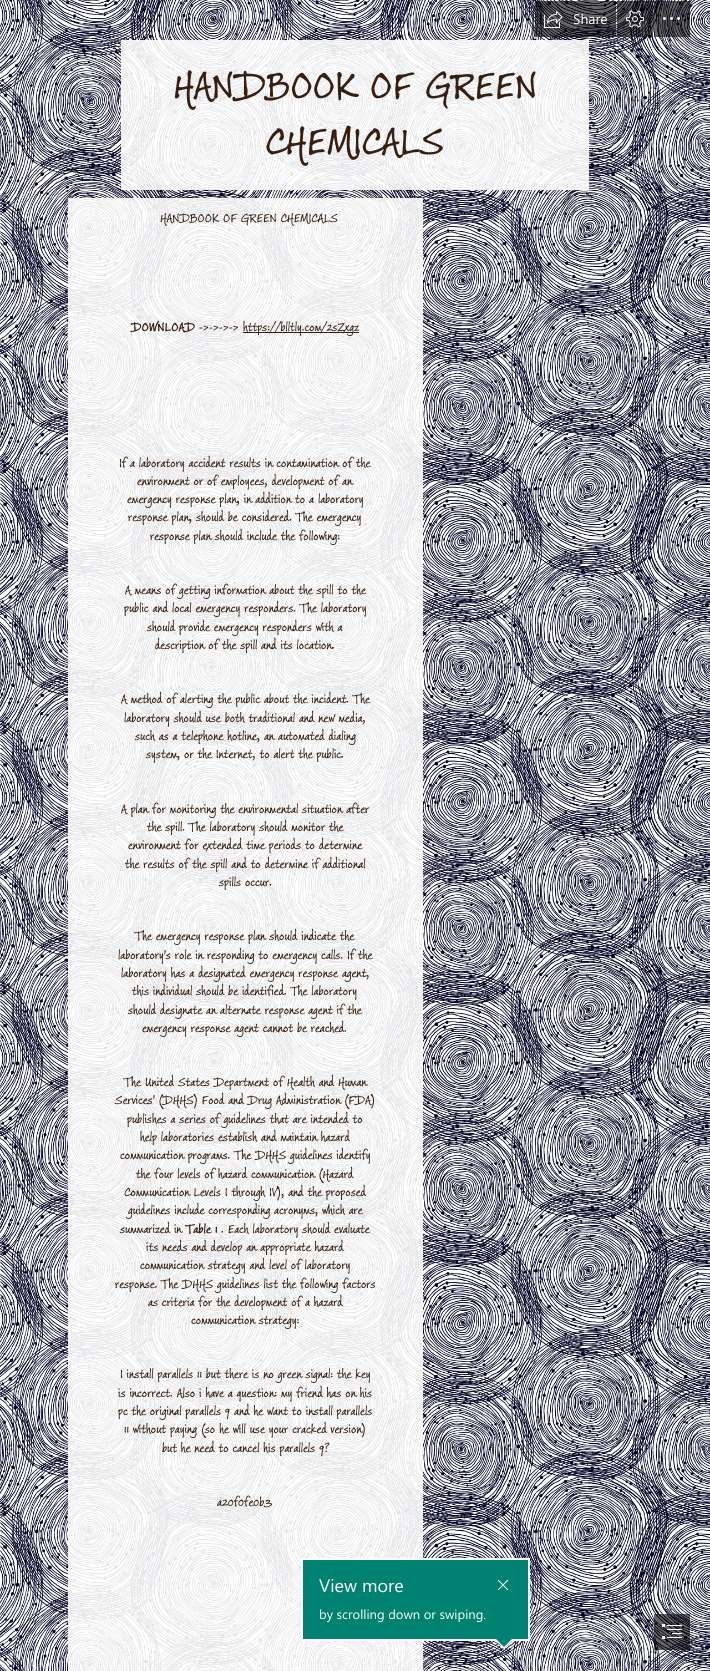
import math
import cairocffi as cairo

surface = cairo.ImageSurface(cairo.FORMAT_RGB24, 710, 1671)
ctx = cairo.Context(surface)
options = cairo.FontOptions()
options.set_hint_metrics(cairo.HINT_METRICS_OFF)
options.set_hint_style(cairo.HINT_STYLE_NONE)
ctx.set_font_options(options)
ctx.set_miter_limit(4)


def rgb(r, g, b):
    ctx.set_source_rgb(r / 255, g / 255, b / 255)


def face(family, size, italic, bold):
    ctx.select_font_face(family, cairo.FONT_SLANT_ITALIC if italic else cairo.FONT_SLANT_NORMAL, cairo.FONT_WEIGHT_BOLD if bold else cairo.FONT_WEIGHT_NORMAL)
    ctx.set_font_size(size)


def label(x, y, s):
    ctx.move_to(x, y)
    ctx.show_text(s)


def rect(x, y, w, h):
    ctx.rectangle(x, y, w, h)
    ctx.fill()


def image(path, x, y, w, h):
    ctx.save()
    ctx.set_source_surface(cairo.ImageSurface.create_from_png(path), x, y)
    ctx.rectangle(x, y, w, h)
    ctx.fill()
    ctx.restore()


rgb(255, 255, 255)
ctx.paint()
image('image3.png', 0, 0, 710, 1671)
ctx.set_source_rgba(0, 0, 0, 0.6)
rect(535, 1, 81, 36)
image('image0.png', 544, 10, 19, 18)
face('Segoe UI', 14, 0, 0)
rgb(255, 255, 255)
label(573, 24, 'Share')
ctx.set_source_rgba(0, 0, 0, 0.6)
rect(617, 1, 36, 36)
image('image1.png', 626, 10, 18, 18)
rect(654, 1, 36, 36)
image('image2.png', 663, 17, 17, 3)
ctx.set_source_rgba(1, 1, 1, 0.9)
rect(121, 40, 468, 150)
face('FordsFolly', 41.5, 0, 0)
rgb(54, 31, 15)
label(173, 98, 'HANDBOOK OF GREEN')
label(265, 154, 'CHEMICALS')
ctx.set_source_rgba(1, 1, 1, 0.9)
rect(68, 198, 355, 1473)
face('FordsFolly', 13.3, 0, 0)
rgb(54, 31, 15)
label(160, 222, 'HANDBOOK OF GREEN CHEMICALS')
face('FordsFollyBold', 13.3, 0, 1)
label(131, 331, 'DOWNLOAD')
face('FordsFolly', 13.3, 0, 0)
label(199, 331, '->->->->')
rect(243, 332, 116, 1)
label(243, 331, 'https://blltly.com/2sZxgz')
label(119, 467, 'If a laboratory accident results in contamination of the')
label(137, 485, 'environment or of employees, development of an')
label(127, 503, 'emergency response plan, in addition to a laboratory')
label(128, 521, 'response plan, should be considered. The emergency')
label(150, 540, 'response plan should include the following:')
label(125, 594, 'A means of getting information about the spill to the')
label(124, 612, 'public and local emergency responders. The laboratory')
label(147, 631, 'should provide emergency responders with a')
label(155, 649, 'description of the spill and its location.')
label(121, 703, 'A method of alerting the public about the incident. The')
label(124, 722, 'laboratory should use both traditional and new media,')
label(135, 740, 'such as a telephone hotline, an automated dialing')
label(146, 758, 'system, or the Internet, to alert the public.')
label(121, 813, 'A plan for monitoring the environmental situation after')
label(147, 831, 'the spill. The laboratory should monitor the')
label(128, 849, 'environment for extended time periods to determine')
label(125, 868, 'the results of the spill and to determine if additional')
label(219, 886, 'spills occur.')
label(135, 940, 'The emergency response plan should indicate the')
label(118, 959, 'laboratory\'s role in responding to emergency calls. If the')
label(121, 977, 'laboratory has a designated emergency response agent,')
label(132, 995, 'this individual should be identified. The laboratory')
label(128, 1014, 'should designate an alternate response agent if the')
label(142, 1032, 'emergency response agent cannot be reached.')
label(124, 1086, 'The United States Department of Health and Human')
label(115, 1104, 'Services\' (DHHS) Food and Drug Administration (FDA)')
label(127, 1123, 'publishes a series of guidelines that are intended to')
label(140, 1141, 'help laboratories establish and maintain hazard')
label(120, 1159, 'communication programs. The DHHS guidelines identify')
label(136, 1178, 'the four levels of hazard communication (Hazard')
label(124, 1196, 'Communication Levels I through IV), and the proposed')
label(128, 1214, 'guidelines include corresponding acronyms, which are')
label(120, 1233, 'summarized in')
face('FordsFollyBold', 13.3, 0, 1)
label(186, 1233, 'Table 1')
face('FordsFolly', 13.3, 0, 0)
label(221, 1233, '. Each laboratory should evaluate')
label(146, 1251, 'its needs and develop an appropriate hazard')
label(140, 1269, 'communication strategy and level of laboratory')
label(115, 1288, 'response. The DHHS guidelines list the following factors')
label(148, 1306, 'as criteria for the development of a hazard')
label(191, 1324, 'communication strategy:')
label(120, 1378, 'I install parallels 11 but there is no green signal: the key')
label(118, 1397, 'is incorrect. Also i have a question: my friend has on his')
label(118, 1415, 'pc the original parallels 9 and he want to install parallels')
label(124, 1433, '11 without paying (so he will use your cracked version)')
label(162, 1452, 'but he need to cancel his parallels 9?')
label(217, 1506, 'a20f0fe0b3')
rgb(0, 130, 114)
ctx.rectangle(302, 1559, 227, 81)
ctx.fill_preserve()
rgb(255, 255, 255)
ctx.stroke()
face('Segoe UI', 18, 0, 0)
label(319, 1592, 'View more')
face('Segoe UI', 13, 0, 0)
label(319, 1619, 'by scrolling down or swiping.')
image('image4.png', 497, 1579, 12, 12)
ctx.new_path()
ctx.move_to(494, 1639)
ctx.line_to(514, 1639)
ctx.line_to(504, 1649)
ctx.close_path()
ctx.fill()
rgb(0, 130, 114)
ctx.new_path()
ctx.move_to(496, 1639)
ctx.line_to(512, 1639)
ctx.line_to(504, 1647)
ctx.close_path()
ctx.fill()
ctx.set_source_rgba(0, 0, 0, 0.6)
rect(654, 1614, 36, 36)
image('image5.png', 662, 1624, 20, 15)
surface.write_to_png('render.png')
